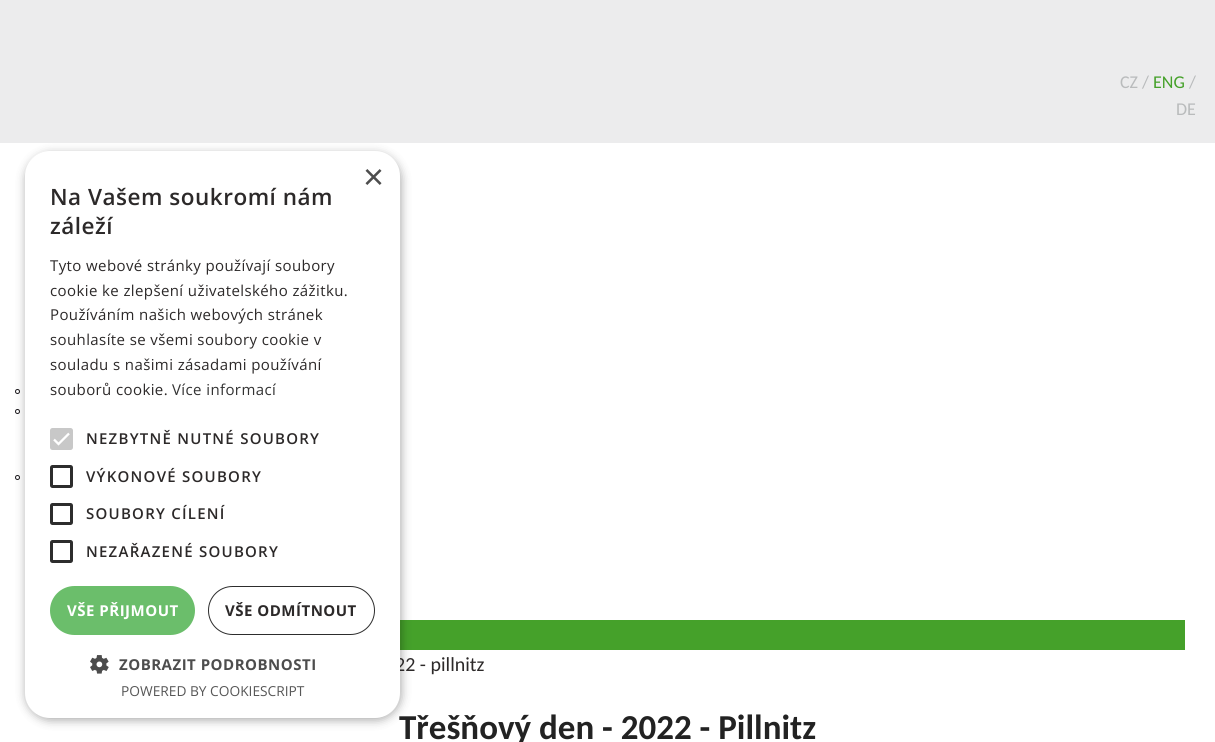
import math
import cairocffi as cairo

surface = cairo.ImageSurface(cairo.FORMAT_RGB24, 1215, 742)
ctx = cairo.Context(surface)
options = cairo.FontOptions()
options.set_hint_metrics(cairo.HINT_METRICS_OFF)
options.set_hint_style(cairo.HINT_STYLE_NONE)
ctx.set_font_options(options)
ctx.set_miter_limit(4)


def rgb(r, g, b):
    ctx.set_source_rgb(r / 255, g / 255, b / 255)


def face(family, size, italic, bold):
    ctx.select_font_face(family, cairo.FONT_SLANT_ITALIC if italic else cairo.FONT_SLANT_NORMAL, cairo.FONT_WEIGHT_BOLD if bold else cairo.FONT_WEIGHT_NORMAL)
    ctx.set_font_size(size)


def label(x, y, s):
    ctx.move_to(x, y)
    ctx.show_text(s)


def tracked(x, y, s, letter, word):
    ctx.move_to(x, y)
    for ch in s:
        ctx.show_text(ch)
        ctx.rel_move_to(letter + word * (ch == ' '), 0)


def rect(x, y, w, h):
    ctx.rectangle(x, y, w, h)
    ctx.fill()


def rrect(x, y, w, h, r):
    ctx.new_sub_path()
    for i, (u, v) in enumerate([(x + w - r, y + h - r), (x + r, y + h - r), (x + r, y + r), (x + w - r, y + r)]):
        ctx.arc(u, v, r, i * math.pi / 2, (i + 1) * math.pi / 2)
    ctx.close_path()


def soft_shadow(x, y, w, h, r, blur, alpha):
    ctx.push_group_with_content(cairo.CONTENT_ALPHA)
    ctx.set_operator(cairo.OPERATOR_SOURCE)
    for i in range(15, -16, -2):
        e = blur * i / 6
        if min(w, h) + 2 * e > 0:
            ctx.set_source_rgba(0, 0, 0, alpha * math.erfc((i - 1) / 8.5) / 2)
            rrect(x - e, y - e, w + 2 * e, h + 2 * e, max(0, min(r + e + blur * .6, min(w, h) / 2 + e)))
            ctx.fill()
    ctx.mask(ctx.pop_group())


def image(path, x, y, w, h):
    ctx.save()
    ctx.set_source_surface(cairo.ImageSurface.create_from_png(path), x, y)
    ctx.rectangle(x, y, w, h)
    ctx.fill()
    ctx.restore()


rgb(255, 255, 255)
ctx.paint()
rgb(236, 236, 237)
rect(0, 0, 1215, 143)
ctx.arc(17.5, 391.5, 2, 0, 2 * math.pi)
rgb(26, 23, 27)
ctx.set_line_width(1)
ctx.stroke()
ctx.arc(17.5, 411.5, 2, 0, 2 * math.pi)
ctx.stroke()
ctx.arc(17.5, 477.5, 2, 0, 2 * math.pi)
ctx.stroke()
rgb(69, 161, 42)
rect(400, 620, 785, 30)
rgb(0, 0, 0)
soft_shadow(26, 154, 375, 566, 25, 5, 0.35)
face('Carlito', 20, 0, 0)
rgb(44, 41, 41)
label(395, 671, '22 - pillnitz')
face('Carlito', 35, 0, 1)
rgb(34, 34, 34)
label(399, 739, 'Třešňový den - 2022 - Pillnitz')
rgb(255, 255, 255)
rrect(25, 151, 375, 567, 25)
ctx.fill()
face('Liberation Sans', 36, 0, 0)
rgb(77, 77, 77)
label(363, 189, '×')
face('Open Sans SemiBold', 22.5, 0, 0)
rgb(44, 41, 41)
tracked(50, 205, 'Na Vašem soukromí nám', 0.5, 0)
tracked(50, 234, 'záleží', 0.5, 0)
face('Open Sans', 15, 0, 0)
tracked(50, 271, 'Tyto webové stránky používají soubory', 0.4, 0)
tracked(50, 296, 'cookie ke zlepšení uživatelského zážitku.', 0.4, 0)
tracked(50, 320, 'Používáním našich webových stránek', 0.4, 0)
tracked(50, 345, 'souhlasíte se všemi soubory cookie v', 0.4, 0)
tracked(50, 370, 'souladu s našimi zásadami používání', 0.4, 0)
tracked(50, 395, 'souborů cookie.', 0.4, 0)
rgb(51, 51, 51)
tracked(172, 395, 'Více informací', 0.4, 0)
rgb(200, 200, 200)
rrect(50, 428, 23, 22, 2.5)
ctx.fill()
ctx.new_path()
ctx.move_to(54, 439.5)
ctx.line_to(58.5, 444)
ctx.line_to(69, 433.5)
rgb(255, 255, 255)
ctx.set_line_width(2.3)
ctx.stroke()
face('Open Sans SemiBold', 15, 0, 0)
rgb(44, 41, 41)
tracked(86, 444, 'NEZBYTNĚ NUTNÉ SOUBORY', 1.25, 0)
rrect(51.5, 466.5, 20, 20, 1)
rgb(45, 45, 45)
ctx.set_line_width(3)
ctx.stroke()
rgb(44, 41, 41)
tracked(86, 482, 'VÝKONOVÉ SOUBORY', 1.25, 0)
rrect(51.5, 504.5, 20, 19, 1)
rgb(45, 45, 45)
ctx.stroke()
rgb(44, 41, 41)
tracked(86, 519, 'SOUBORY CÍLENÍ', 1.25, 0)
rrect(51.5, 541.5, 20, 20, 1)
rgb(45, 45, 45)
ctx.stroke()
rgb(44, 41, 41)
tracked(86, 557, 'NEZAŘAZENÉ SOUBORY', 1.25, 0)
rgb(107, 190, 107)
rrect(50, 586, 145, 49, 24.5)
ctx.fill()
face('Open Sans', 15, 0, 1)
rgb(255, 255, 255)
tracked(67, 616, 'VŠE PŘIJMOUT', 0.5, 0)
rrect(208.5, 586.5, 166, 48, 24)
rgb(45, 45, 45)
ctx.set_line_width(1)
ctx.stroke()
rgb(44, 41, 41)
tracked(225, 616, 'VŠE ODMÍTNOUT', 0.5, 0)
image('image0.png', 90, 655, 19, 19)
rgb(77, 77, 77)
tracked(119, 670, 'ZOBRAZIT PODROBNOSTI', 0.5, 0)
face('Open Sans', 13.75, 0, 0)
rgb(87, 87, 87)
label(121, 696, 'POWERED BY COOKIESCRIPT')
face('Carlito', 18, 0, 0)
rgb(185, 187, 188)
label(1120, 88, 'CZ /')
rgb(69, 161, 42)
label(1153, 88, 'ENG')
rgb(185, 187, 188)
label(1189, 88, '/')
label(1176, 115, 'DE')
surface.write_to_png('render.png')
